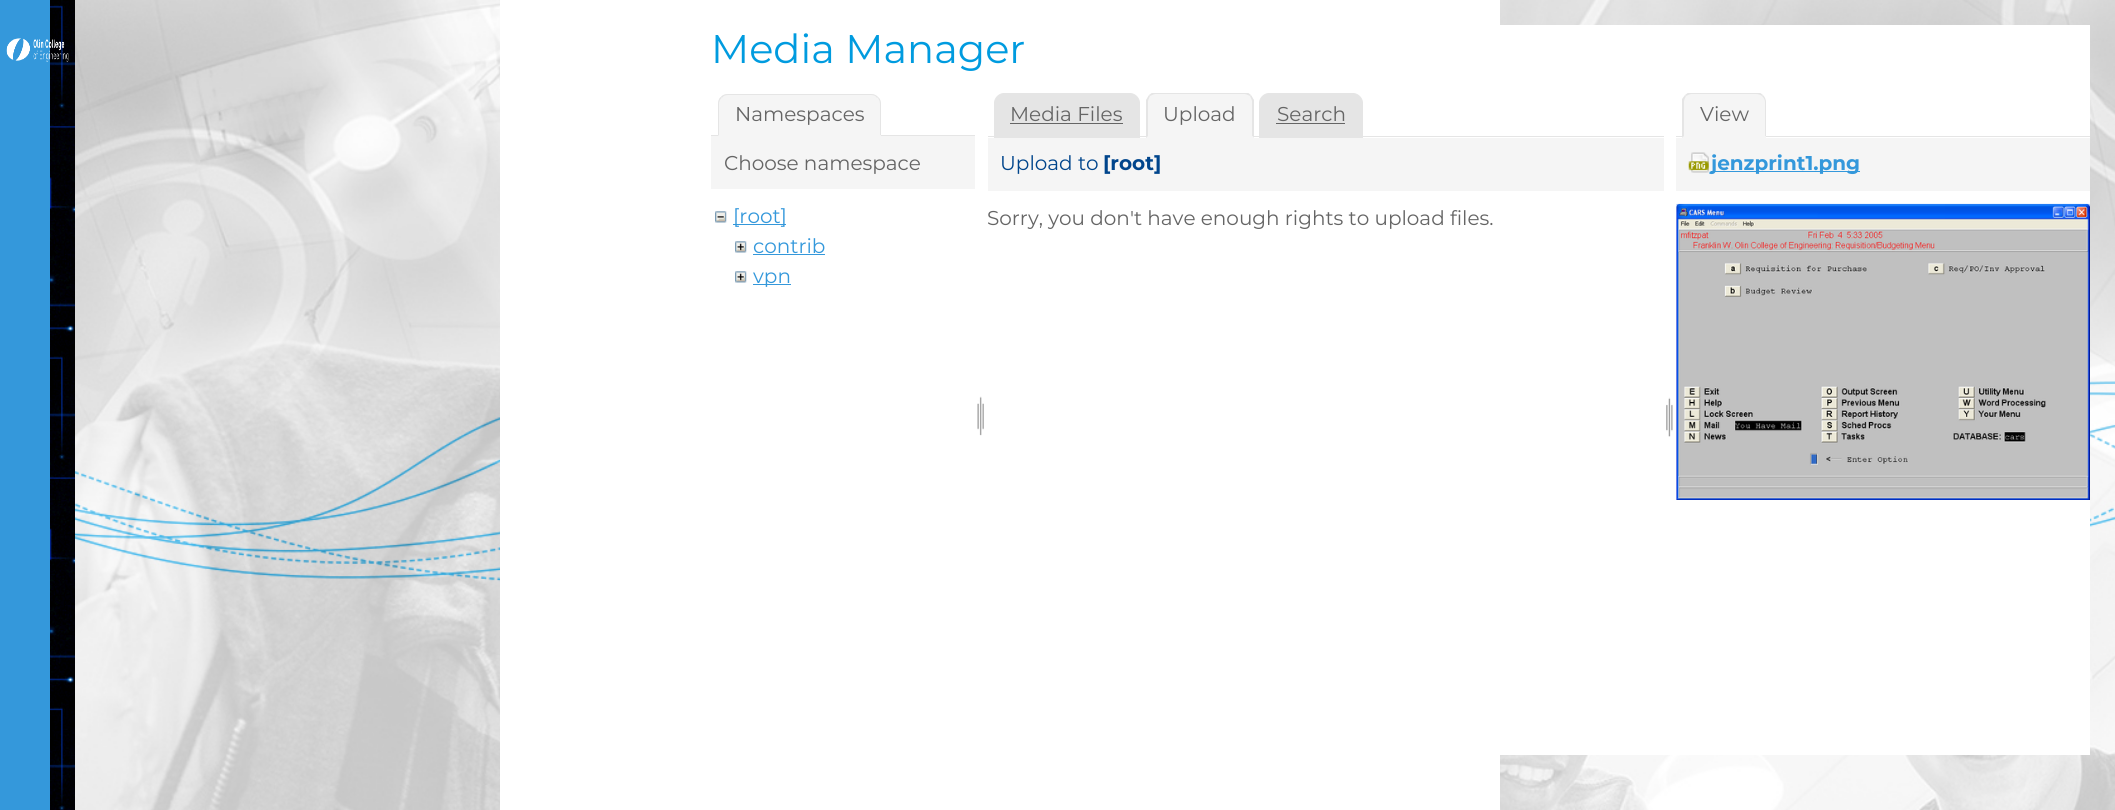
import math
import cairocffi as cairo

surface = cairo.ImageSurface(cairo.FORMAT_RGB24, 2115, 810)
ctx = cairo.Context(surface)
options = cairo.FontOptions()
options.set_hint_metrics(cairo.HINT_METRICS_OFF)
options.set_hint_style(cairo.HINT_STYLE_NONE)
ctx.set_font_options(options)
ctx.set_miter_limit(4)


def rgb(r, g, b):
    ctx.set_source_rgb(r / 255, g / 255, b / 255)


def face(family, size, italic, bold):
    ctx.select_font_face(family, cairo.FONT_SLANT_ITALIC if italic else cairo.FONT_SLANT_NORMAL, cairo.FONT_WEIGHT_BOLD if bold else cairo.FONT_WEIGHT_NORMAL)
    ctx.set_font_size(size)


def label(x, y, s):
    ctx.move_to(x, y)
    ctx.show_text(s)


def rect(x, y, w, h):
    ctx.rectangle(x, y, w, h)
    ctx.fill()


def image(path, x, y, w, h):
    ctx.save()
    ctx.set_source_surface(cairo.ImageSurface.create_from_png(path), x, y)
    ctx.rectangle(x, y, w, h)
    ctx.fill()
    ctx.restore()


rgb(255, 255, 255)
ctx.paint()
image('image0.png', 75, 0, 2040, 810)
rgb(52, 152, 219)
rect(0, 0, 50, 810)
image('image1.png', 50, 0, 25, 810)
rgb(255, 255, 255)
rect(500, 0, 1000, 810)
image('image2.png', 6, 38, 63, 24)
rect(1500, 25, 590, 730)
face('Montserrat', 40, 0, 0)
rgb(0, 155, 223)
label(711, 63, 'Media Manager')
rgb(229, 229, 229)
rect(711, 135, 264, 1)
rgb(245, 245, 245)
ctx.new_path()
ctx.move_to(728, 94)
ctx.line_to(871, 94)
ctx.curve_to(876.5, 94, 881, 98.5, 881, 104)
ctx.line_to(881, 136)
ctx.line_to(718, 136)
ctx.line_to(718, 104)
ctx.curve_to(718, 98.5, 722.5, 94, 728, 94)
ctx.close_path()
ctx.fill()
rgb(229, 229, 229)
ctx.new_path()
ctx.move_to(728, 94)
ctx.curve_to(725, 94, 722, 95, 721, 97)
ctx.line_to(722, 98)
ctx.curve_to(723, 96, 725, 95, 728, 95)
ctx.line_to(871, 95)
ctx.curve_to(874, 95, 876, 96, 877, 98)
ctx.line_to(878, 97)
ctx.curve_to(876, 95, 874, 94, 871, 94)
ctx.close_path()
ctx.fill()
ctx.new_path()
ctx.move_to(881, 136)
ctx.line_to(881, 104)
ctx.curve_to(881, 101, 880, 98.5, 878, 97)
ctx.line_to(877.5, 97.5)
ctx.curve_to(879, 99, 880, 101.5, 880, 104)
ctx.line_to(880, 135)
ctx.close_path()
ctx.fill()
rgb(245, 245, 245)
ctx.new_path()
ctx.move_to(881, 136)
ctx.line_to(880, 135)
ctx.line_to(719, 135)
ctx.line_to(718, 136)
ctx.close_path()
ctx.fill()
rgb(229, 229, 229)
ctx.new_path()
ctx.move_to(720.5, 97)
ctx.curve_to(719, 98.5, 718, 101, 718, 104)
ctx.line_to(718, 136)
ctx.line_to(719, 135)
ctx.line_to(719, 104)
ctx.curve_to(719, 101.5, 720, 99.5, 721.5, 98)
ctx.close_path()
ctx.fill()
face('Montserrat', 20, 0, 0)
rgb(101, 101, 101)
label(735, 121, 'Namespaces')
rgb(245, 245, 245)
rect(711, 136, 264, 53)
rgb(101, 101, 101)
label(724, 170, 'Choose namespace')
image('image3.png', 715, 211, 12, 12)
rgb(52, 152, 219)
rect(733, 224, 53, 1)
label(733, 223, '[root]')
image('image4.png', 735, 241, 12, 12)
label(753, 253, 'contrib')
rect(753, 254, 72, 1)
image('image4.png', 735, 271, 12, 12)
rect(753, 284, 38, 1)
label(753, 283, 'vpn')
image('image5.png', 977, 396, 7, 40)
rgb(229, 229, 229)
ctx.new_path()
ctx.move_to(1004, 93.5)
ctx.line_to(1130, 93.5)
ctx.curve_to(1135, 93.5, 1139.5, 98, 1139.5, 103)
ctx.line_to(1139.5, 137.5)
ctx.line_to(994.5, 137.5)
ctx.line_to(994.5, 103)
ctx.curve_to(994.5, 98, 999, 93.5, 1004, 93.5)
ctx.close_path()
ctx.fill_preserve()
ctx.set_line_width(1)
ctx.stroke()
rgb(101, 101, 101)
label(1010, 121, 'Media Files')
rect(1010, 123, 113, 1)
rgb(229, 229, 229)
ctx.new_path()
ctx.move_to(1269, 93.5)
ctx.line_to(1353, 93.5)
ctx.curve_to(1358, 93.5, 1362.5, 98, 1362.5, 103)
ctx.line_to(1362.5, 137.5)
ctx.line_to(1259.5, 137.5)
ctx.line_to(1259.5, 103)
ctx.curve_to(1259.5, 98, 1264, 93.5, 1269, 93.5)
ctx.close_path()
ctx.fill_preserve()
ctx.stroke()
rect(988, 136, 676, 1)
rgb(245, 245, 245)
ctx.new_path()
ctx.move_to(1156, 93)
ctx.line_to(1244, 93)
ctx.curve_to(1249.5, 93, 1254, 97.5, 1254, 103)
ctx.line_to(1254, 138)
ctx.line_to(1146, 138)
ctx.line_to(1146, 103)
ctx.curve_to(1146, 97.5, 1150.5, 93, 1156, 93)
ctx.close_path()
ctx.fill()
ctx.save()
ctx.rectangle(988, 93, 676, 45)
ctx.clip()
rgb(229, 229, 229)
ctx.new_path()
ctx.move_to(1156, 94)
ctx.curve_to(1154, 94, 1152, 95, 1150, 96)
ctx.line_to(1149, 95)
ctx.line_to(1153, 92)
ctx.line_to(1247, 92)
ctx.line_to(1251, 95)
ctx.line_to(1250, 96)
ctx.curve_to(1248, 95, 1246, 94, 1244, 94)
ctx.close_path()
ctx.fill()
ctx.restore()
rgb(229, 229, 229)
ctx.new_path()
ctx.move_to(1251, 95)
ctx.curve_to(1252, 97, 1253, 98, 1254, 100)
ctx.line_to(1254, 138)
ctx.line_to(1252, 136)
ctx.line_to(1252, 102)
ctx.curve_to(1252, 100, 1251, 98, 1250, 96)
ctx.close_path()
ctx.fill()
rgb(245, 245, 245)
ctx.new_path()
ctx.move_to(1254, 138)
ctx.line_to(1252, 136)
ctx.line_to(1148, 136)
ctx.line_to(1146, 138)
ctx.close_path()
ctx.fill()
rgb(229, 229, 229)
ctx.new_path()
ctx.move_to(1146, 138)
ctx.line_to(1146, 100)
ctx.curve_to(1147, 98, 1148, 97, 1149, 95)
ctx.line_to(1150, 96)
ctx.curve_to(1149, 98, 1148, 100, 1148, 102)
ctx.line_to(1148, 136)
ctx.close_path()
ctx.fill()
rgb(101, 101, 101)
label(1163, 121, 'Upload')
label(1277, 121, 'Search')
rect(1276, 123, 69, 1)
rgb(245, 245, 245)
rect(988, 138, 676, 53)
rgb(0, 69, 140)
label(1000, 170, 'Upload to')
face('Montserrat', 20, 0, 1)
label(1103, 170, '[root]')
face('Montserrat', 20, 0, 0)
rgb(101, 101, 101)
label(987, 225, 'Sorry, you don\'t have enough rights to upload files.')
image('image6.png', 1666, 397, 7, 40)
rgb(229, 229, 229)
rect(1676, 136, 414, 1)
rgb(245, 245, 245)
ctx.new_path()
ctx.move_to(1693, 93)
ctx.line_to(1756, 93)
ctx.curve_to(1761.5, 93, 1766, 97.5, 1766, 103)
ctx.line_to(1766, 138)
ctx.line_to(1683, 138)
ctx.line_to(1683, 103)
ctx.curve_to(1683, 97.5, 1687.5, 93, 1693, 93)
ctx.close_path()
ctx.fill()
ctx.save()
ctx.rectangle(1676, 93, 414, 45)
ctx.clip()
rgb(229, 229, 229)
ctx.new_path()
ctx.move_to(1692, 94)
ctx.curve_to(1690, 94, 1688, 95, 1686, 96)
ctx.line_to(1685, 95)
ctx.line_to(1689, 92)
ctx.line_to(1759, 92)
ctx.line_to(1763, 95)
ctx.line_to(1762, 96)
ctx.curve_to(1761, 95, 1758, 94, 1756, 94)
ctx.close_path()
ctx.fill()
ctx.restore()
rgb(229, 229, 229)
ctx.new_path()
ctx.move_to(1763, 95)
ctx.curve_to(1765, 97, 1766, 100, 1766, 102)
ctx.line_to(1766, 137)
ctx.line_to(1765, 136)
ctx.line_to(1765, 102)
ctx.curve_to(1765, 100, 1764, 98, 1762, 96)
ctx.close_path()
ctx.fill()
rgb(245, 245, 245)
ctx.new_path()
ctx.move_to(1766, 137)
ctx.line_to(1682, 138)
ctx.line_to(1684, 136)
ctx.line_to(1765, 136)
ctx.close_path()
ctx.fill()
rgb(229, 229, 229)
ctx.new_path()
ctx.move_to(1682, 138)
ctx.line_to(1682, 99)
ctx.line_to(1685, 95)
ctx.line_to(1686, 96)
ctx.curve_to(1685, 98, 1684, 100, 1684, 102)
ctx.line_to(1684, 136)
ctx.close_path()
ctx.fill()
rgb(101, 101, 101)
label(1700, 121, 'View')
rgb(245, 245, 245)
rect(1676, 138, 414, 53)
image('image7.png', 1688, 152, 21, 21)
rgb(52, 152, 219)
rect(1711, 171, 149, 1)
face('Montserrat', 20, 0, 1)
label(1711, 170, 'jenzprint1.png')
image('image8.png', 1676, 203, 414, 297)
surface.write_to_png('render.png')
